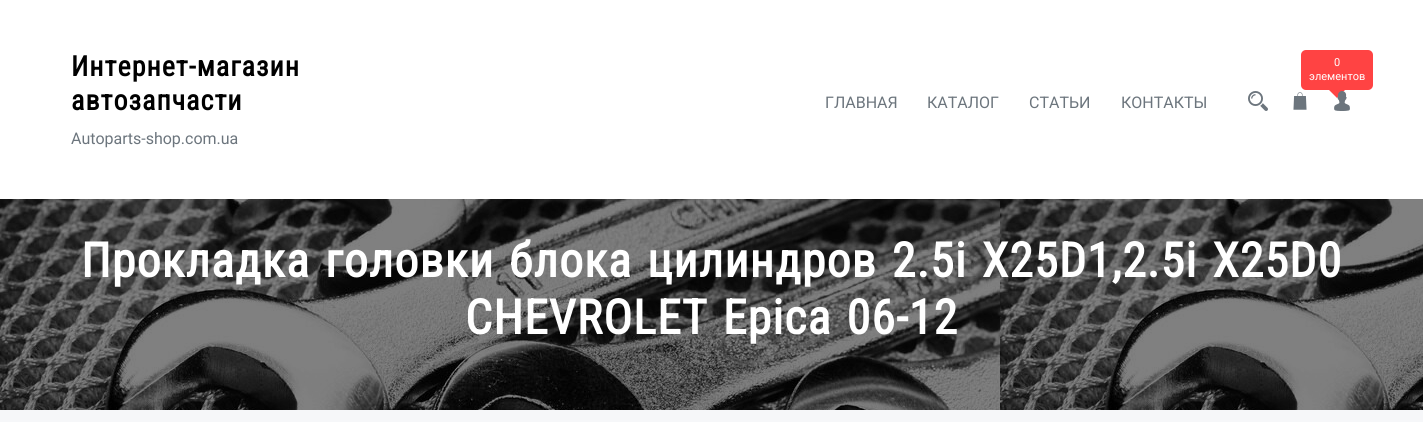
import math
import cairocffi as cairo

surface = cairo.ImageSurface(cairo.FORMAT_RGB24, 1423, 422)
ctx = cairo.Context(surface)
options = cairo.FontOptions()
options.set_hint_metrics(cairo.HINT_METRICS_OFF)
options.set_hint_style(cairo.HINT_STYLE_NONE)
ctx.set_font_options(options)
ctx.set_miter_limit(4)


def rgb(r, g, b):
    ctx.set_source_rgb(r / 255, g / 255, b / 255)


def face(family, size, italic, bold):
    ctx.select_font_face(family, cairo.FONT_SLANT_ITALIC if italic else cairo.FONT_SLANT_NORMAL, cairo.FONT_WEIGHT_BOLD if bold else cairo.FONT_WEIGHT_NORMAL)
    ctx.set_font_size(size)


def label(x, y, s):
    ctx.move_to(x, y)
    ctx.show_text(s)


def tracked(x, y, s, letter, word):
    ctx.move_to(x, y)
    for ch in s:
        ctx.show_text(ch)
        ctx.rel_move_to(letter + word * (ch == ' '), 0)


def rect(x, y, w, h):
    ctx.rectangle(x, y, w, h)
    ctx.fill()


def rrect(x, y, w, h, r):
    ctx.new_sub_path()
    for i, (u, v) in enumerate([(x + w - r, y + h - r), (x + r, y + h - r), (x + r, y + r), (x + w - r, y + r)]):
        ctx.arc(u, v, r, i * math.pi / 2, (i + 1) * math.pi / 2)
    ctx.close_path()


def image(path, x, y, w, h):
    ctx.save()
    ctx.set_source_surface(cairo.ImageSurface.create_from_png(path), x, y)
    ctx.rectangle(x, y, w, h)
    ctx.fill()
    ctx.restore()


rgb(246, 247, 249)
ctx.paint()
rgb(255, 255, 255)
rect(0, 0, 1423, 199)
face('Roboto Condensed', 28, 0, 1)
rgb(0, 0, 0)
tracked(71, 76, 'Интернет-магазин', 1, 0)
tracked(71, 110, 'автозапчасти', 1, 0)
face('Roboto', 16, 0, 0)
rgb(108, 117, 125)
label(71, 144, 'Autoparts-shop.com.ua')
rgb(255, 67, 67)
rrect(1301, 50, 72, 40, 5)
ctx.fill()
face('Roboto', 11, 0, 0)
rgb(255, 255, 255)
label(1334, 66, '0')
label(1309, 80, 'элементов')
rgb(255, 67, 67)
ctx.new_path()
ctx.move_to(1329, 90)
ctx.line_to(1345, 90)
ctx.line_to(1337, 98)
ctx.close_path()
ctx.fill()
image('image0.png', 1293, 92, 14, 18)
image('image1.png', 1248, 91, 20, 20)
image('image2.png', 1334, 91, 16, 20)
face('Roboto', 16, 0, 0)
rgb(108, 117, 125)
label(825, 108, 'ГЛАВНАЯ')
label(927, 108, 'КАТАЛОГ')
label(1029, 108, 'СТАТЬИ')
label(1121, 108, 'КОНТАКТЫ')
image('image3.png', 0, 199, 1423, 211)
face('Roboto Condensed', 48, 0, 1)
rgb(255, 255, 255)
tracked(81, 277, 'Прокладка головки блока цилиндров 2.5i X25D1,2.5i X25D0', 1, 3)
tracked(465, 334, 'CHEVROLET Epica 06-12', 1, 3)
surface.write_to_png('render.png')
